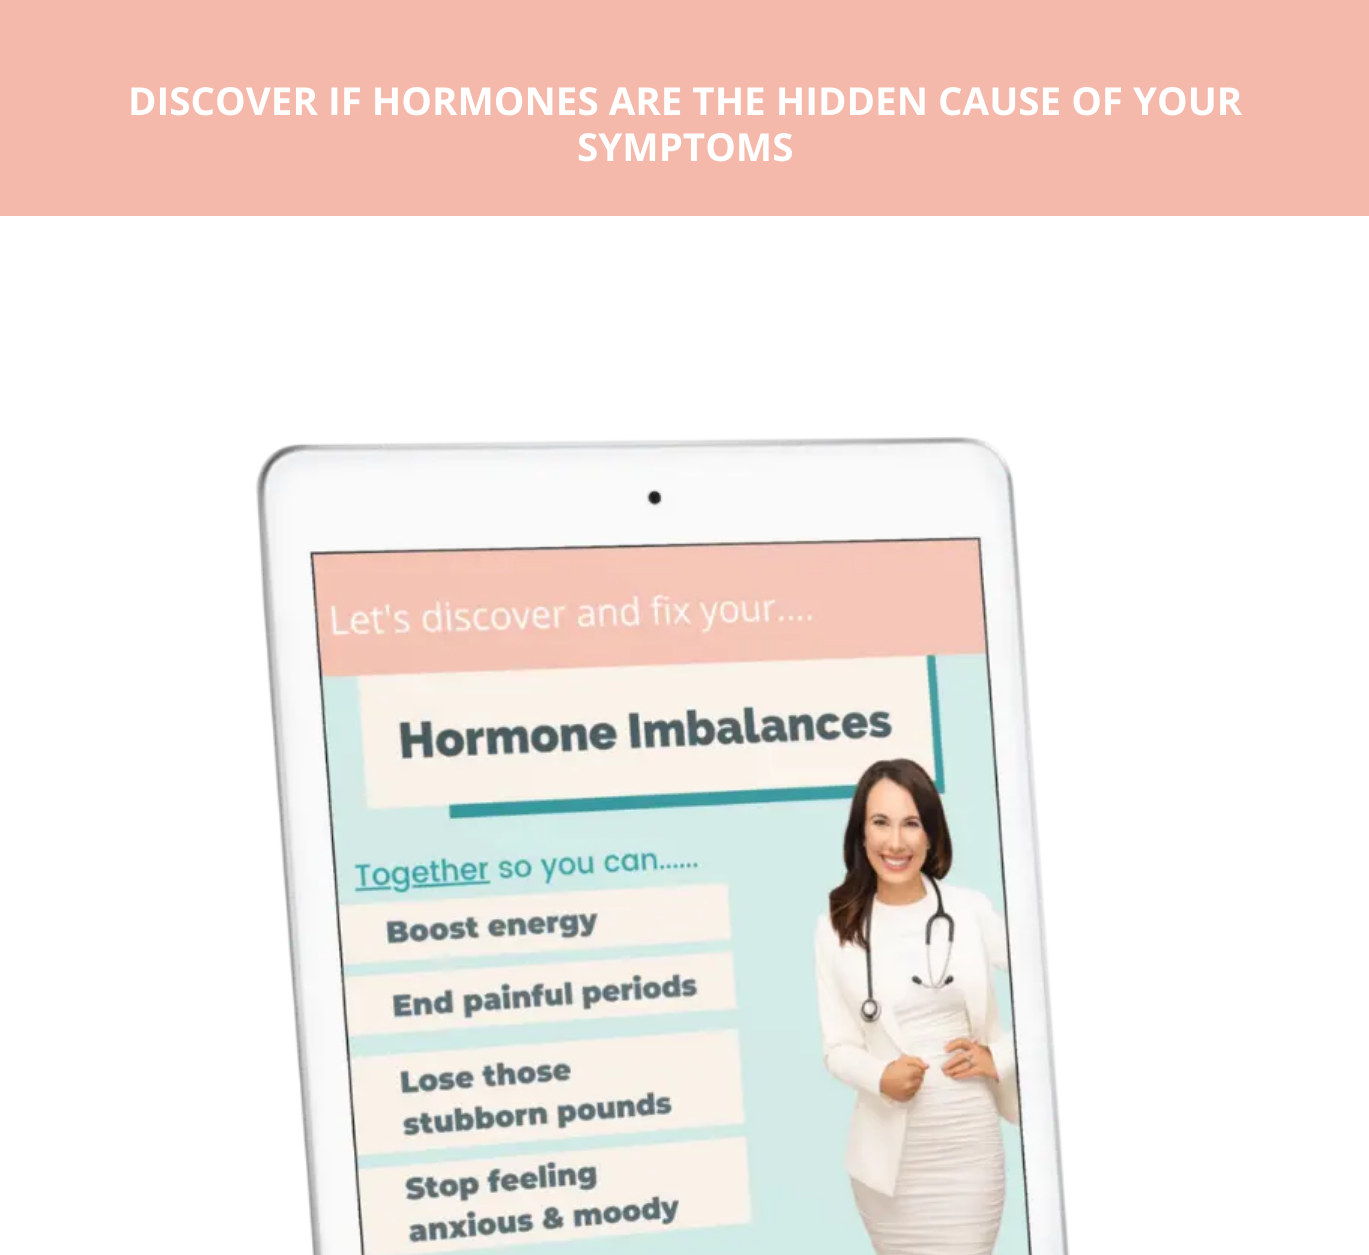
import math
import cairocffi as cairo

surface = cairo.ImageSurface(cairo.FORMAT_RGB24, 1369, 1255)
ctx = cairo.Context(surface)
options = cairo.FontOptions()
options.set_hint_metrics(cairo.HINT_METRICS_OFF)
options.set_hint_style(cairo.HINT_STYLE_NONE)
ctx.set_font_options(options)
ctx.set_miter_limit(4)


def rgb(r, g, b):
    ctx.set_source_rgb(r / 255, g / 255, b / 255)


def face(family, size, italic, bold):
    ctx.select_font_face(family, cairo.FONT_SLANT_ITALIC if italic else cairo.FONT_SLANT_NORMAL, cairo.FONT_WEIGHT_BOLD if bold else cairo.FONT_WEIGHT_NORMAL)
    ctx.set_font_size(size)


def label(x, y, s):
    ctx.move_to(x, y)
    ctx.show_text(s)


def rect(x, y, w, h):
    ctx.rectangle(x, y, w, h)
    ctx.fill()


def image(path, x, y, w, h):
    ctx.save()
    ctx.set_source_surface(cairo.ImageSurface.create_from_png(path), x, y)
    ctx.rectangle(x, y, w, h)
    ctx.fill()
    ctx.restore()


rgb(255, 255, 255)
ctx.paint()
rgb(244, 185, 171)
rect(0, 0, 1369, 216)
face('Open Sans', 38.55, 0, 1)
rgb(255, 255, 255)
label(128, 115, 'DISCOVER IF HORMONES ARE THE HIDDEN CAUSE OF YOUR')
label(577, 161, 'SYMPTOMS')
image('image0.png', 255, 436, 815, 819)
surface.write_to_png('render.png')
